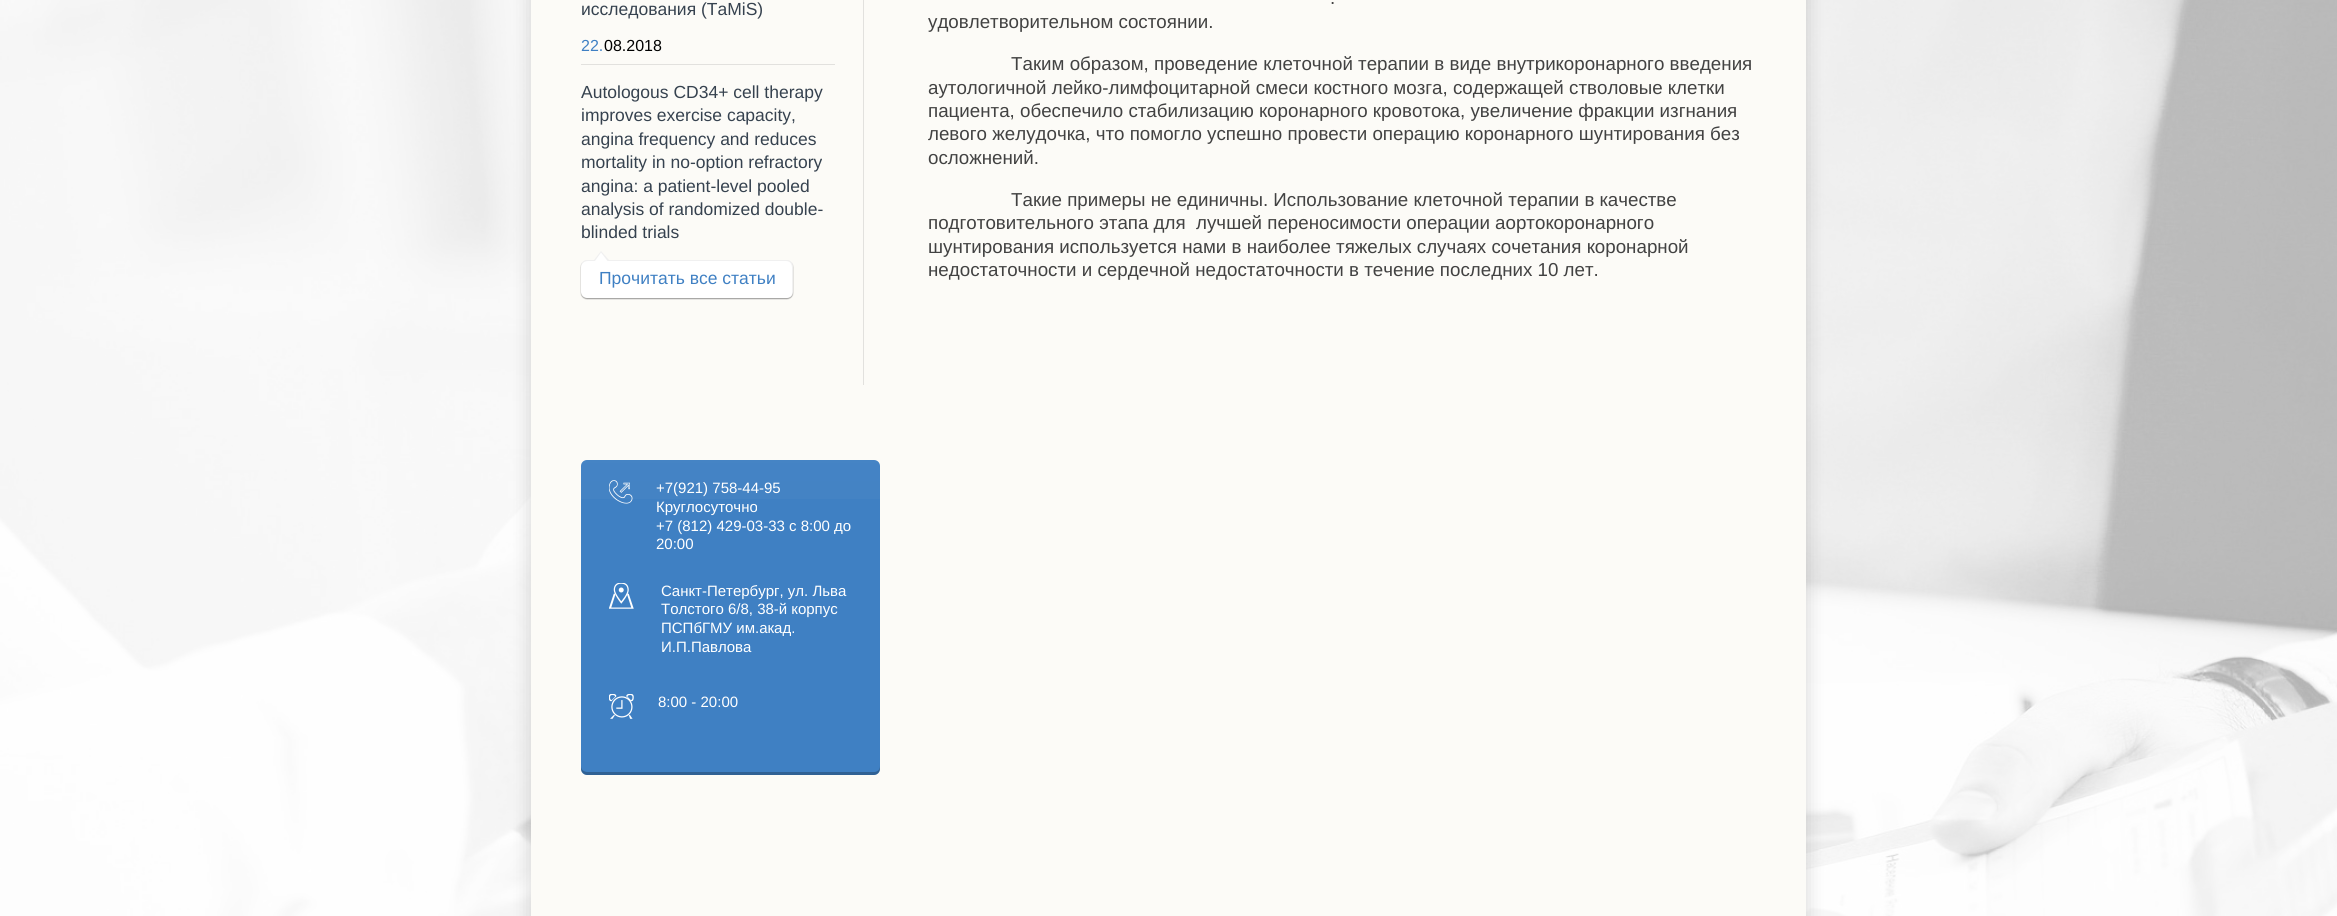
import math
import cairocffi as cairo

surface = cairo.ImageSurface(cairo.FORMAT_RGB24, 2337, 916)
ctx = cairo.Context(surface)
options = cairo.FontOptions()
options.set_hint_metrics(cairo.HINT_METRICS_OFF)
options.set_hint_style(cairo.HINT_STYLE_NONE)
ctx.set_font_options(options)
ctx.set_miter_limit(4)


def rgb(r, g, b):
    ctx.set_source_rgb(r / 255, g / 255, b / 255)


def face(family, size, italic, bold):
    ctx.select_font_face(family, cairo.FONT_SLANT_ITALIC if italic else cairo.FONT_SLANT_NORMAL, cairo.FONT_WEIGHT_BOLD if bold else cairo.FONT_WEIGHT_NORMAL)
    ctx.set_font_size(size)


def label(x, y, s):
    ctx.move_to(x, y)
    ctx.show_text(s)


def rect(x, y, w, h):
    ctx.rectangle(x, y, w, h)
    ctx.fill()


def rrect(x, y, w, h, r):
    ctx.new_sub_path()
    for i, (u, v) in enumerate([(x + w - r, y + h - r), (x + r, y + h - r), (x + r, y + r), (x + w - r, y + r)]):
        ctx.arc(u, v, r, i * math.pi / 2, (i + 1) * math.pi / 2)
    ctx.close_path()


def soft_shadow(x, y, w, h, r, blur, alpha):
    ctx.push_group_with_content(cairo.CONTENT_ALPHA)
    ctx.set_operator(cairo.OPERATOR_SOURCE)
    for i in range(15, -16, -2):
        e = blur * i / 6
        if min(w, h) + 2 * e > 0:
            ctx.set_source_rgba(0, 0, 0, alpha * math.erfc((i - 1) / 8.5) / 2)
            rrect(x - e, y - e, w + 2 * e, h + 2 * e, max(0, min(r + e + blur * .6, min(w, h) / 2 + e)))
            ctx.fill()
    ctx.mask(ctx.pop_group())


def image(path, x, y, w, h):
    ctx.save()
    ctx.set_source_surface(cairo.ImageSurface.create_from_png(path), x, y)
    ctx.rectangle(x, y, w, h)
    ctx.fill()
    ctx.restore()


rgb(255, 255, 255)
ctx.paint()
image('image0.png', 0, 0, 2337, 916)
rgb(0, 0, 0)
soft_shadow(531, -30, 1275, 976, 0, 10, 0.16)
rgb(252, 251, 247)
rect(531, 0, 1275, 916)
rgb(226, 225, 222)
rect(863, 0, 1, 385)
face('Liberation Sans', 17.5, 0, 0)
rgb(54, 66, 79)
label(581, 15, 'исследования (TaMiS)')
rgb(226, 225, 222)
rect(581, 64, 254, 1)
face('Liberation Sans', 16, 0, 0)
rgb(63, 128, 195)
label(581, 51, '22.')
rgb(0, 0, 0)
label(604, 51, '08.2018')
face('Liberation Sans', 17.5, 0, 0)
rgb(54, 66, 79)
label(581, 98, 'Autologous CD34+ cell therapy')
label(581, 121, 'improves exercise capacity,')
label(581, 145, 'angina frequency and reduces')
label(581, 168, 'mortality in no-option refractory')
label(581, 192, 'angina: a patient-level pooled')
label(581, 215, 'analysis of randomized double-')
label(581, 238, 'blinded trials')
rgb(0, 0, 0)
soft_shadow(581, 261, 212, 38, 6, 0.5, 0.38)
rgb(255, 255, 255)
rrect(581, 260, 212, 38, 6)
ctx.fill()
ctx.set_source_rgba(0, 0, 0, 0.06)
ctx.new_path()
ctx.move_to(588, 261)
ctx.line_to(786, 261)
ctx.curve_to(790, 261, 792, 264, 792, 268)
ctx.line_to(792, 292)
ctx.curve_to(792, 294, 792, 295, 791, 297)
ctx.curve_to(792, 296, 793, 294, 793, 292)
ctx.line_to(793, 266)
ctx.curve_to(793, 263, 790, 260, 787, 260)
ctx.line_to(587, 260)
ctx.curve_to(584, 260, 581, 263, 581, 266)
ctx.line_to(581, 268)
ctx.curve_to(581, 264, 584, 261, 588, 261)
ctx.close_path()
ctx.fill()
rgb(240, 240, 240)
ctx.new_path()
ctx.move_to(609, 260)
ctx.line_to(594, 260)
ctx.line_to(601, 251)
ctx.close_path()
ctx.fill()
rgb(255, 255, 255)
ctx.new_path()
ctx.move_to(607.5, 261)
ctx.line_to(595, 261)
ctx.line_to(601, 252.5)
ctx.close_path()
ctx.fill()
rgb(63, 128, 195)
label(599, 284, 'Прочитать все статьи')
face('Liberation Sans', 18.75, 0, 0)
rgb(66, 66, 66)
label(1330, 4, '.')
label(928, 28, 'удовлетворительном состоянии.')
label(1011, 70, 'Таким образом, проведение клеточной терапии в виде внутрикоронарного введения')
label(928, 94, 'аутологичной лейко-лимфоцитарной смеси костного мозга, содержащей стволовые клетки')
label(928, 117, 'пациента, обеспечило стабилизацию коронарного кровотока, увеличение фракции изгнания')
label(928, 140, 'левого желудочка, что помогло успешно провести операцию коронарного шунтирования без')
label(928, 164, 'осложнений.')
label(1011, 206, 'Такие примеры не единичны. Использование клеточной терапии в качестве')
label(928, 229, 'подготовительного этапа для  лучшей переносимости операции аортокоронарного')
label(928, 253, 'шунтирования используется нами в наиболее тяжелых случаях сочетания коронарной')
label(928, 276, 'недостаточности и сердечной недостаточности в течение последних 10 лет.')
rgb(63, 128, 195)
rrect(581, 460, 299, 315, 6)
ctx.fill()
gradient = cairo.LinearGradient(731, 775, 731, 460)
gradient.add_color_stop_rgba(0, 0, 0, 0, 0)
gradient.add_color_stop_rgba(0.56, 1, 1, 1, 0)
gradient.add_color_stop_rgba(1, 1, 1, 1, 0.03)
ctx.set_source(gradient)
rect(581, 460, 299, 39)
ctx.set_source_rgba(0, 0, 0, 0.24)
ctx.new_path()
ctx.move_to(581, 766)
ctx.line_to(581, 769)
ctx.curve_to(581, 772, 584, 775, 587, 775)
ctx.line_to(874, 775)
ctx.curve_to(877, 775, 880, 772, 880, 769)
ctx.line_to(880, 766)
ctx.curve_to(880, 770, 877, 772, 874, 772)
ctx.line_to(588, 772)
ctx.curve_to(584, 772, 581, 770, 581, 766)
ctx.close_path()
ctx.fill()
image('image1.png', 609, 480, 24, 24)
face('Liberation Sans', 15, 0, 0)
rgb(255, 255, 255)
label(656, 493, '+7(921) 758-44-95')
label(656, 512, 'Круглосуточно')
label(656, 531, '+7 (812) 429-03-33 с 8:00 до')
label(656, 549, '20:00')
image('image2.png', 609, 583, 25, 26)
label(661, 596, 'Санкт-Петербург, ул. Льва')
label(661, 614, 'Толстого 6/8, 38-й корпус')
label(661, 633, 'ПСПбГМУ им.акад.')
label(661, 652, 'И.П.Павлова')
image('image3.png', 609, 694, 25, 25)
label(658, 707, '8:00 - 20:00')
surface.write_to_png('render.png')
